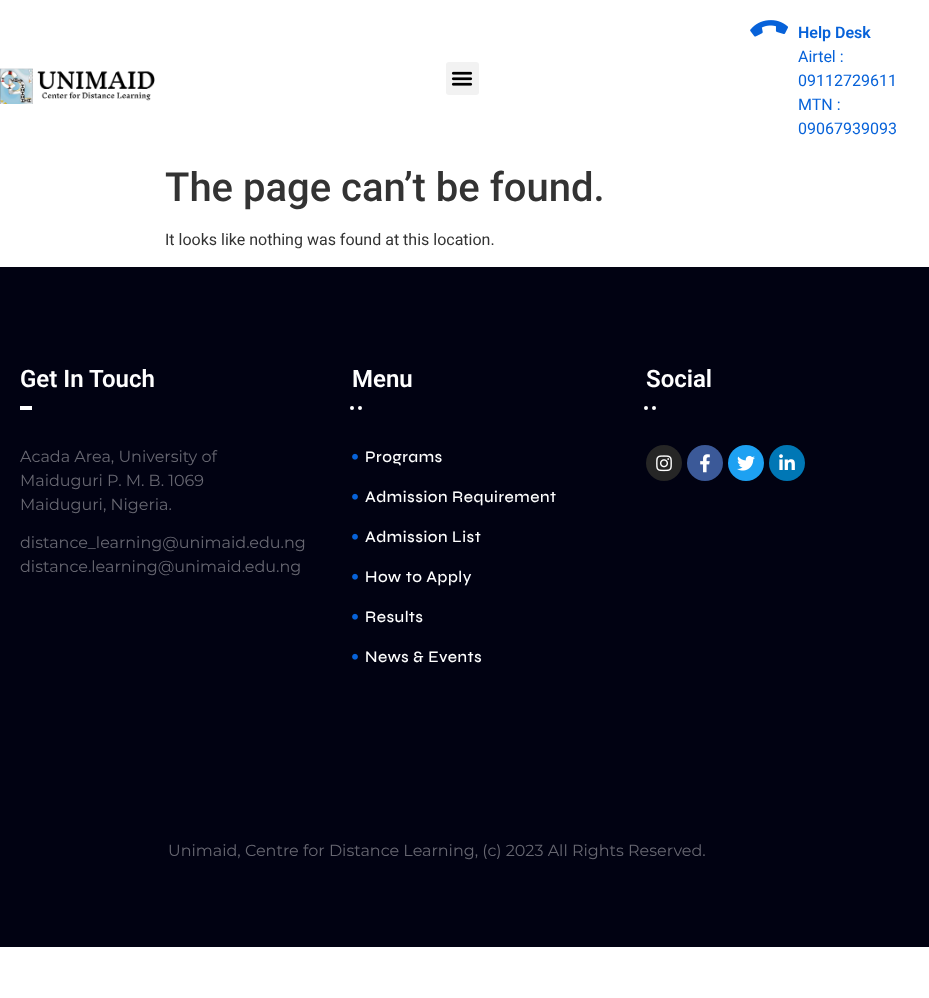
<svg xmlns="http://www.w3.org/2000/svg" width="929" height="998">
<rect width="100%" height="100%" fill="#fff"/>
<image x="0" y="68" width="155" height="36" href="media/1.png"/>
<rect x="446" y="62" width="33" height="33" rx="3" fill="#f2f2f2"/>
<image x="451" y="71" width="22" height="15" href="media/2.png"/>
<image x="750" y="20" width="38" height="17" href="media/3.png"/>
<text x="798" y="38" style="font-family:Roboto;font-size:16px;font-weight:600;fill:#0762d9">Help Desk</text>
<text x="798" y="62" style="font-family:Roboto;font-size:16px;fill:#0762d9">Airtel :</text>
<text x="798" y="86" style="font-family:Roboto;font-size:16px;fill:#0762d9">09112729611</text>
<text x="798" y="110" style="font-family:Roboto;font-size:16px;fill:#0762d9">MTN :</text>
<text x="798" y="134" style="font-family:Roboto;font-size:16px;fill:#0762d9">09067939093</text>
<text x="165" y="201" style="font-family:Roboto;font-size:40px;font-weight:500;fill:#333">The page can’t be found.</text>
<text x="165" y="245" style="font-family:Roboto;font-size:16px;fill:#333">It looks like nothing was found at this location.</text>
<rect y="267" width="929" height="680" fill="#010212"/>
<text x="20" y="387" style="font-family:Roboto;font-size:24px;font-weight:600;fill:#fff">Get In Touch</text>
<rect x="20" y="406" width="12" height="4" fill="#fff"/>
<text x="20" y="462" style="font-family:Montserrat;font-size:16px;fill:#676771">Acada Area, University of</text>
<text x="20" y="486" style="font-family:Montserrat;font-size:16px;fill:#676771">Maiduguri P. M. B. 1069</text>
<text x="20" y="510" style="font-family:Montserrat;font-size:16px;fill:#676771">Maiduguri, Nigeria.</text>
<text x="20" y="548" style="font-family:Montserrat;font-size:16px;fill:#676771">distance_learning@unimaid.edu.ng</text>
<text x="20" y="572" style="font-family:Montserrat;font-size:16px;fill:#676771">distance.learning@unimaid.edu.ng</text>
<text x="352" y="387" style="font-family:Roboto;font-size:24px;font-weight:600;fill:#fff">Menu</text>
<path d="M352 408h13" fill="none" stroke="#fff" stroke-width="4" stroke-linecap="round" stroke-dasharray="0 8"/>
<image x="352" y="453" width="6" height="7" href="media/4.png"/>
<text x="365" y="462" style="font-family:Syne;font-size:16px;font-weight:500;letter-spacing:0.5px;fill:#fff">Programs</text>
<image x="352" y="493" width="6" height="7" href="media/4.png"/>
<text x="365" y="502" style="font-family:Syne;font-size:16px;font-weight:500;letter-spacing:0.5px;fill:#fff">Admission Requirement</text>
<image x="352" y="533" width="6" height="7" href="media/4.png"/>
<text x="365" y="542" style="font-family:Syne;font-size:16px;font-weight:500;letter-spacing:0.5px;fill:#fff">Admission List</text>
<image x="352" y="573" width="6" height="7" href="media/4.png"/>
<text x="365" y="582" style="font-family:Syne;font-size:16px;font-weight:500;letter-spacing:0.5px;fill:#fff">How to Apply</text>
<image x="352" y="613" width="6" height="7" href="media/4.png"/>
<text x="365" y="622" style="font-family:Syne;font-size:16px;font-weight:500;letter-spacing:0.5px;fill:#fff">Results</text>
<image x="352" y="653" width="6" height="7" href="media/4.png"/>
<text x="365" y="662" style="font-family:Syne;font-size:16px;font-weight:500;letter-spacing:0.5px;fill:#fff">News &amp; Events</text>
<text x="646" y="387" style="font-family:Roboto;font-size:24px;font-weight:600;fill:#fff">Social</text>
<path d="M646 408h13" fill="none" stroke="#fff" stroke-width="4" stroke-linecap="round" stroke-dasharray="0 8"/>
<circle cx="664" cy="463" r="18" fill="#262626"/>
<image x="656" y="455" width="16" height="17" href="media/5.png"/>
<circle cx="705" cy="463" r="18" fill="#3b5998"/>
<image x="700" y="454" width="10" height="19" href="media/6.png"/>
<circle cx="746" cy="463" r="18" fill="#1da1f2"/>
<image x="737" y="455" width="18" height="16" href="media/7.png"/>
<circle cx="787" cy="463" r="18" fill="#0077b5"/>
<image x="779" y="454" width="16" height="16" href="media/8.png"/>
<text x="168" y="856" style="font-family:Montserrat;font-size:16px;fill:#676771">Unimaid, Centre for Distance Learning, (c) 2023 All Rights Reserved.</text>
</svg>
